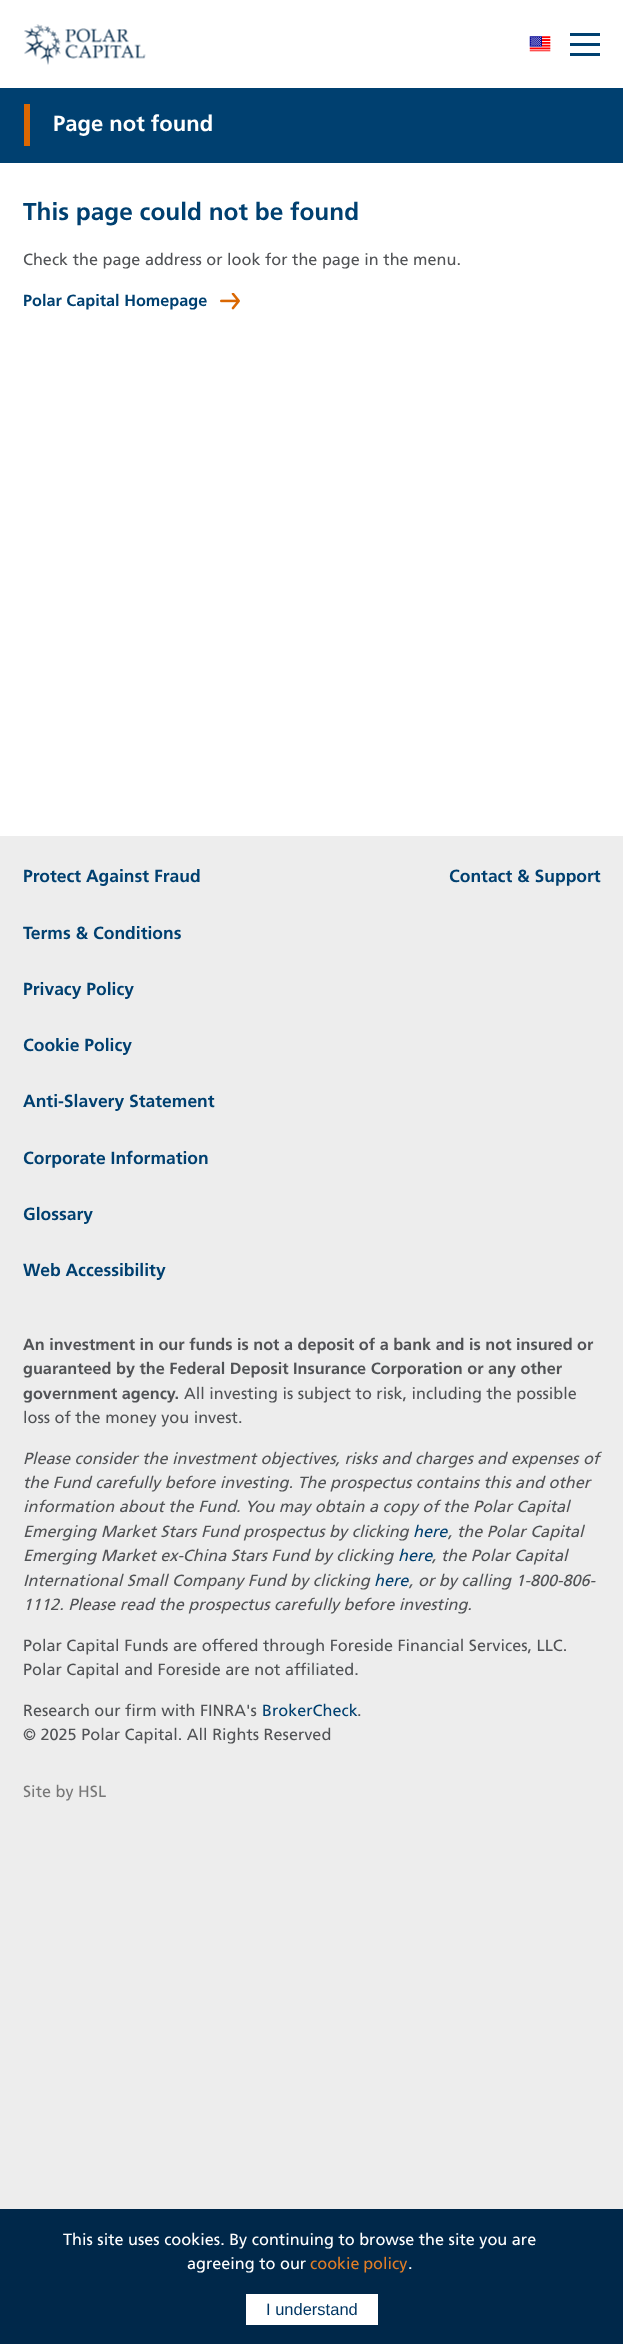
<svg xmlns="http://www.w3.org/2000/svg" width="623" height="2344">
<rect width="100%" height="100%" fill="#fff"/>
<image x="24" y="24" width="122" height="41" href="media/1.png"/>
<image x="529" y="36" width="22" height="16" href="media/2.png"/>
<rect x="570" y="33" width="30" height="3" fill="#004070"/>
<rect x="570" y="43" width="30" height="3" fill="#004070"/>
<rect x="570" y="53" width="30" height="3" fill="#004070"/>
<rect y="88" width="623" height="75" fill="#004070"/>
<rect x="24" y="104" width="6" height="42" fill="#da6702"/>
<text x="53" y="131" style="font-family:Frutiger;font-size:22px;fill:#fff">Page not found</text>
<text x="23" y="220" style="font-family:Frutiger;font-size:24.4px;fill:#004070">This page could not be found</text>
<text x="23" y="265" style="font-family:'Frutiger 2';font-size:16.25px;fill:#515356">Check the page address or look for the page in the menu.</text>
<text x="23" y="306" style="font-family:Frutiger;font-size:16.25px;fill:#004070">Polar Capital Homepage</text>
<image x="220" y="293" width="20" height="17" href="media/3.png"/>
<rect y="836" width="623" height="1373" fill="#ededed"/>
<text x="23" y="882" style="font-family:Frutiger;font-size:17.5px;fill:#004070">Protect Against Fraud</text>
<text x="23" y="939" style="font-family:Frutiger;font-size:17.5px;fill:#004070">Terms &amp; Conditions</text>
<text x="23" y="995" style="font-family:Frutiger;font-size:17.5px;fill:#004070">Privacy Policy</text>
<text x="23" y="1051" style="font-family:Frutiger;font-size:17.5px;fill:#004070">Cookie Policy</text>
<text x="23" y="1107" style="font-family:Frutiger;font-size:17.5px;fill:#004070">Anti-Slavery Statement</text>
<text x="23" y="1164" style="font-family:Frutiger;font-size:17.5px;fill:#004070">Corporate Information</text>
<text x="23" y="1220" style="font-family:Frutiger;font-size:17.5px;fill:#004070">Glossary</text>
<text x="23" y="1276" style="font-family:Frutiger;font-size:17.5px;fill:#004070">Web Accessibility</text>
<text x="449" y="882" style="font-family:Frutiger;font-size:17.5px;fill:#004070">Contact &amp; Support</text>
<text x="23" y="1350" style="font-family:Frutiger;font-size:16.25px;fill:#515356">An investment in our funds is not a deposit of a bank and is not insured or</text>
<text x="23" y="1374" style="font-family:Frutiger;font-size:16.25px;fill:#515356">guaranteed by the Federal Deposit Insurance Corporation or any other</text>
<text x="23" y="1399" style="font-family:Frutiger;font-size:16.25px;fill:#515356">government agency.</text>
<text x="184" y="1399" style="font-family:'Frutiger 2';font-size:16.25px;fill:#515356">All investing is subject to risk, including the possible</text>
<text x="23" y="1423" style="font-family:'Frutiger 2';font-size:16.25px;fill:#515356">loss of the money you invest.</text>
<text x="23" y="1464" style="font-family:Frutiger;font-size:16.25px;font-style:italic;fill:#515356">Please consider the investment objectives, risks and charges and expenses of</text>
<text x="23" y="1488" style="font-family:Frutiger;font-size:16.25px;font-style:italic;fill:#515356">the Fund carefully before investing. The prospectus contains this and other</text>
<text x="23" y="1512" style="font-family:Frutiger;font-size:16.25px;font-style:italic;fill:#515356">information about the Fund. You may obtain a copy of the Polar Capital</text>
<text x="23" y="1537" style="font-family:Frutiger;font-size:16.25px;font-style:italic;fill:#515356">Emerging Market Stars Fund prospectus by clicking</text>
<text x="413" y="1537" style="font-family:Frutiger;font-size:16.25px;font-style:italic;fill:#004070">here</text>
<text x="448" y="1537" style="font-family:Frutiger;font-size:16.25px;font-style:italic;fill:#515356">, the Polar Capital</text>
<text x="23" y="1561" style="font-family:Frutiger;font-size:16.25px;font-style:italic;fill:#515356">Emerging Market ex-China Stars Fund by clicking</text>
<text x="398" y="1561" style="font-family:Frutiger;font-size:16.25px;font-style:italic;fill:#004070">here</text>
<text x="432" y="1561" style="font-family:Frutiger;font-size:16.25px;font-style:italic;fill:#515356">, the Polar Capital</text>
<text x="23" y="1586" style="font-family:Frutiger;font-size:16.25px;font-style:italic;fill:#515356">International Small Company Fund by clicking</text>
<text x="374" y="1586" style="font-family:Frutiger;font-size:16.25px;font-style:italic;fill:#004070">here</text>
<text x="409" y="1586" style="font-family:Frutiger;font-size:16.25px;font-style:italic;fill:#515356">, or by calling 1-800-806-</text>
<text x="23" y="1610" style="font-family:Frutiger;font-size:16.25px;font-style:italic;fill:#515356">1112. Please read the prospectus carefully before investing.</text>
<text x="23" y="1651" style="font-family:'Frutiger 2';font-size:16.25px;fill:#515356">Polar Capital Funds are offered through Foreside Financial Services, LLC.</text>
<text x="23" y="1675" style="font-family:'Frutiger 2';font-size:16.25px;fill:#515356">Polar Capital and Foreside are not affiliated.</text>
<text x="23" y="1716" style="font-family:'Frutiger 2';font-size:16.25px;fill:#515356">Research our firm with FINRA's</text>
<text x="262" y="1716" style="font-family:'Frutiger 2';font-size:16.25px;fill:#004070">BrokerCheck</text>
<text x="357" y="1716" style="font-family:'Frutiger 2';font-size:16.25px;fill:#515356">.</text>
<text x="23" y="1740" style="font-family:'Frutiger 2';font-size:16.25px;fill:#515356">© 2025 Polar Capital. All Rights Reserved</text>
<text x="23" y="1797" style="font-family:'Frutiger 2';font-size:16.25px;fill:#777">Site by HSL</text>
<rect y="2209" width="623" height="135" fill="#00284a"/>
<text x="63" y="2245" style="font-family:'Frutiger 2';font-size:16.25px;fill:#fff">This site uses cookies. By continuing to browse the site you are</text>
<text x="187" y="2269" style="font-family:'Frutiger 2';font-size:16.25px;fill:#fff">agreeing to our</text>
<text x="310" y="2269" word-spacing="-1" style="font-family:'Frutiger 2';font-size:16.25px;fill:#e07e27">cookie policy</text>
<text x="408" y="2269" style="font-family:'Frutiger 2';font-size:16.25px;fill:#fff">.</text>
<rect x="246" y="2294" width="132" height="31" fill="#fff"/>
<text x="266" y="2315" style="font-family:Liberation Sans;font-size:16.5px;fill:#003663">I understand</text>
</svg>
